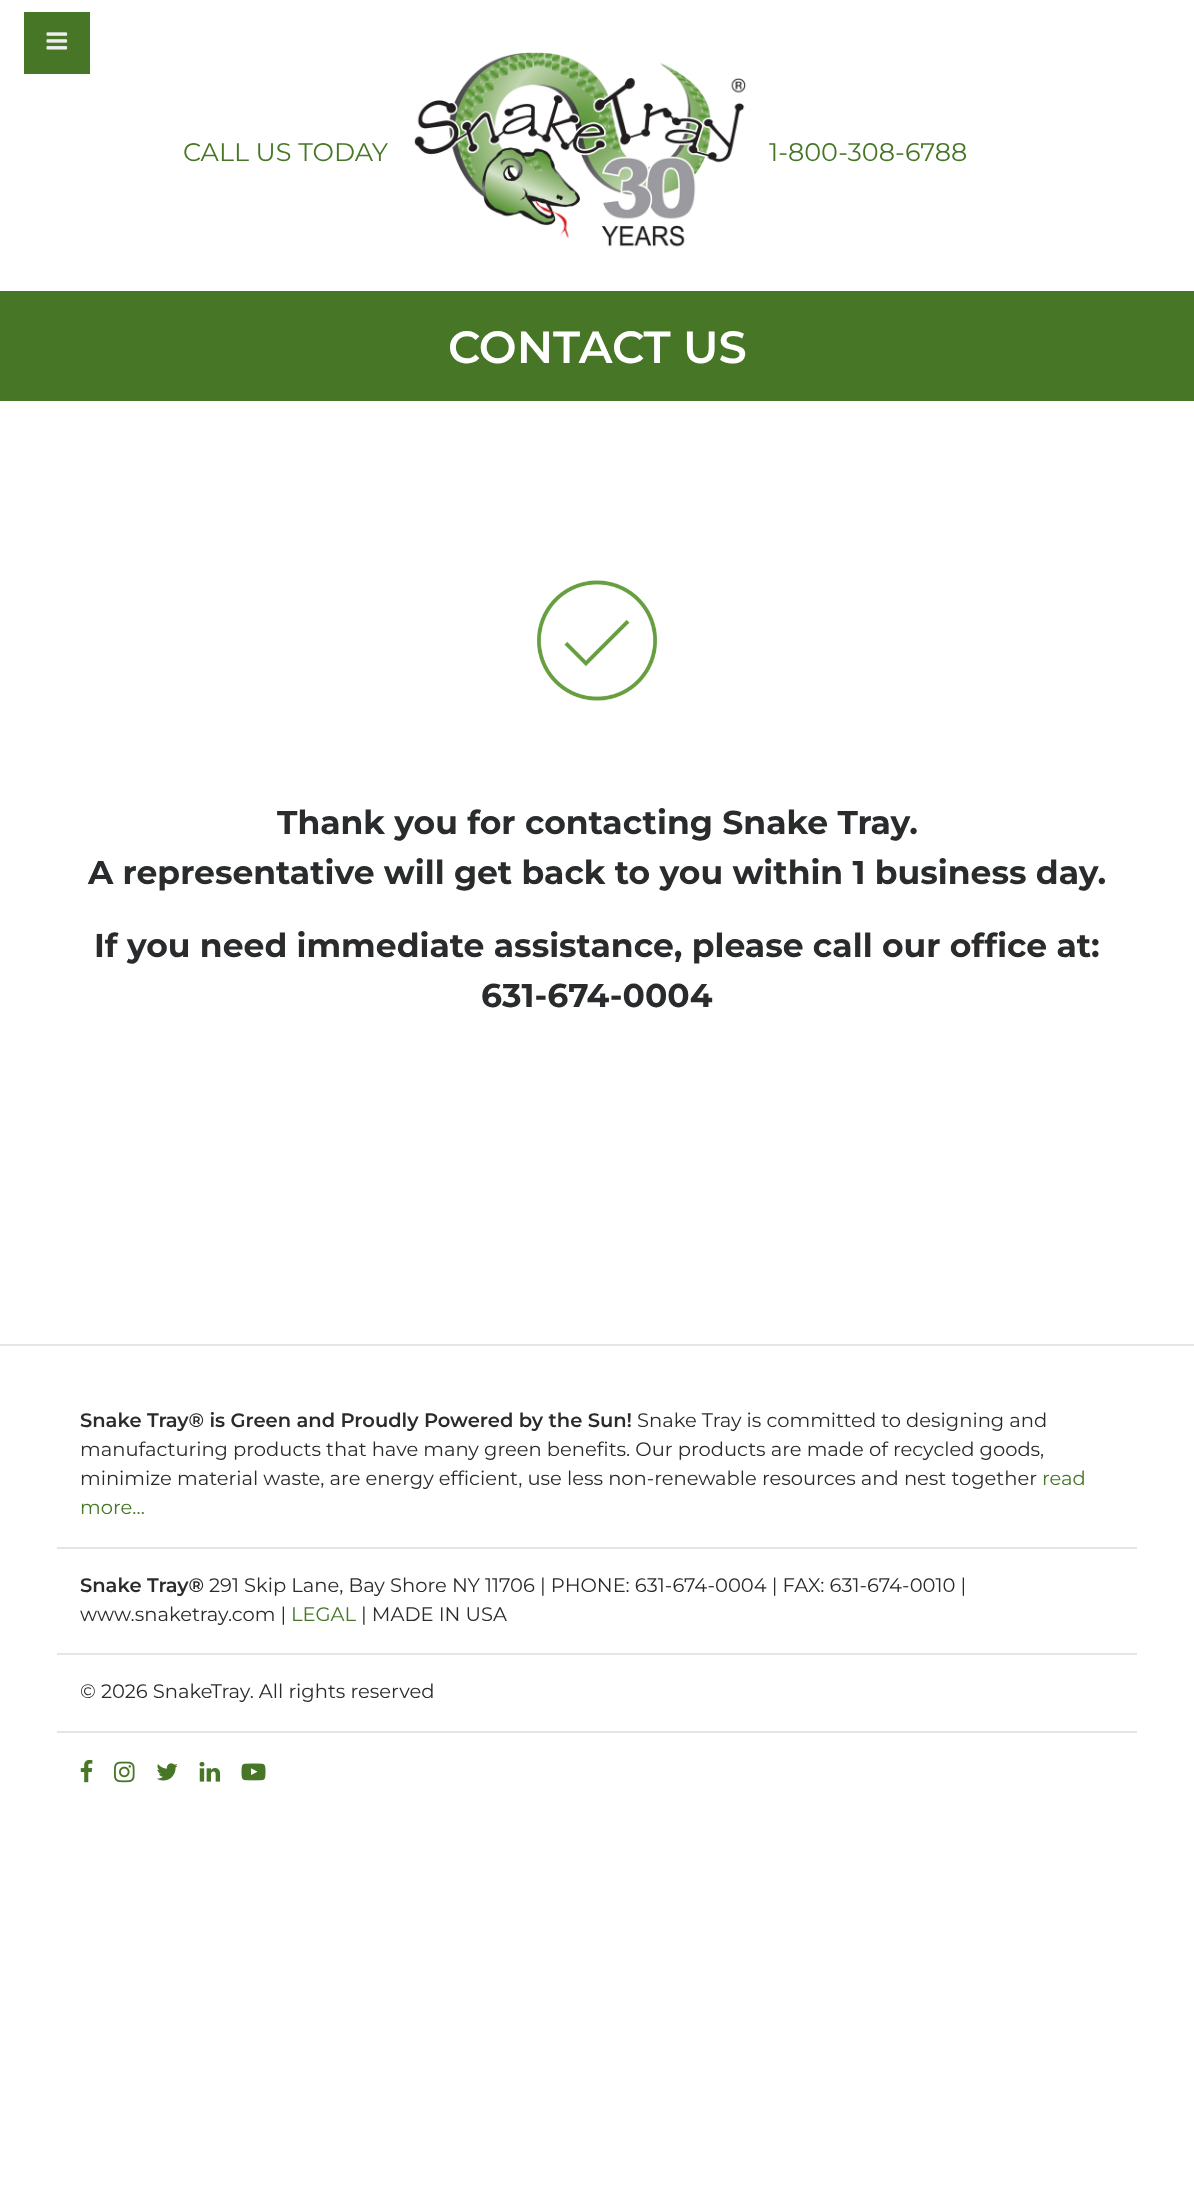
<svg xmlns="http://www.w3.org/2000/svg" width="1194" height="2188">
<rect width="100%" height="100%" fill="#fff"/>
<rect x="24" y="12" width="66" height="62" fill="#477627"/>
<image x="46" y="32" width="22" height="18" href="media/1.png"/>
<text x="183" y="161" style="font-family:Montserrat;font-size:25.5px;font-weight:100;fill:#477627">CALL US TODAY</text>
<image x="414" y="52" width="333" height="195" href="media/2.png"/>
<text x="769" y="161" style="font-family:Montserrat;font-size:25.5px;font-weight:100;fill:#477627">1-800-308-6788</text>
<rect y="291" width="1194" height="110" fill="#477627"/>
<text x="448" y="363" style="font-family:Montserrat;font-size:45px;font-weight:600;fill:#fff">CONTACT US</text>
<image x="537" y="580" width="120" height="121" href="media/3.png"/>
<text x="277" y="834" style="font-family:Montserrat;font-size:33px;font-weight:bold;fill:#292b2c">Thank you for contacting Snake Tray.</text>
<text x="88" y="884" style="font-family:Montserrat;font-size:33px;font-weight:bold;fill:#292b2c">A representative will get back to you within 1 business day.</text>
<text x="94" y="957" style="font-family:Montserrat;font-size:33px;font-weight:bold;fill:#292b2c">If you need immediate assistance, please call our office at:</text>
<text x="481" y="1007" style="font-family:Montserrat;font-size:33px;font-weight:bold;fill:#292b2c">631-674-0004</text>
<rect y="1344" width="1194" height="2" fill="#e5e5e5"/>
<text x="80" y="1427" style="font-family:Montserrat;font-size:19.5px;font-weight:600;fill:#292b2c">Snake Tray® is Green and Proudly Powered by the Sun!</text>
<text x="637" y="1427" style="font-family:Montserrat;font-size:19.5px;font-weight:100;fill:#292b2c">Snake Tray is committed to designing and</text>
<text x="80" y="1456" style="font-family:Montserrat;font-size:19.5px;font-weight:100;fill:#292b2c">manufacturing products that have many green benefits. Our products are made of recycled goods,</text>
<text x="80" y="1485" style="font-family:Montserrat;font-size:19.5px;font-weight:100;fill:#292b2c">minimize material waste, are energy efficient, use less non-renewable resources and nest together</text>
<text x="1042" y="1485" style="font-family:Montserrat;font-size:19.5px;font-weight:100;fill:#477627">read</text>
<text x="80" y="1514" style="font-family:Montserrat;font-size:19.5px;font-weight:100;fill:#477627">more…</text>
<rect x="57" y="1547" width="1080" height="2" fill="#e5e5e5"/>
<text x="80" y="1592" style="font-family:Montserrat;font-size:19.5px;font-weight:600;fill:#292b2c">Snake Tray®</text>
<text x="209" y="1592" style="font-family:Montserrat;font-size:19.5px;font-weight:100;fill:#292b2c">291 Skip Lane, Bay Shore NY 11706 | PHONE: 631-674-0004 | FAX: 631-674-0010 |</text>
<text x="80" y="1621" style="font-family:Montserrat;font-size:19.5px;font-weight:100;fill:#292b2c">www.snaketray.com |</text>
<text x="291" y="1621" style="font-family:Montserrat;font-size:19.5px;font-weight:100;fill:#477627">LEGAL</text>
<text x="361" y="1621" style="font-family:Montserrat;font-size:19.5px;font-weight:100;fill:#292b2c">| MADE IN USA</text>
<rect x="57" y="1653" width="1080" height="2" fill="#e5e5e5"/>
<text x="80" y="1698" style="font-family:Montserrat;font-size:19.5px;font-weight:100;fill:#292b2c">© 2026 SnakeTray. All rights reserved</text>
<rect x="57" y="1731" width="1080" height="2" fill="#e5e5e5"/>
<image x="80" y="1759" width="13" height="24" href="media/4.png"/>
<image x="114" y="1761" width="21" height="22" href="media/5.png"/>
<image x="156" y="1763" width="22" height="18" href="media/6.png"/>
<image x="199" y="1761" width="22" height="21" href="media/7.png"/>
<image x="241" y="1763" width="25" height="18" href="media/8.png"/>
</svg>
